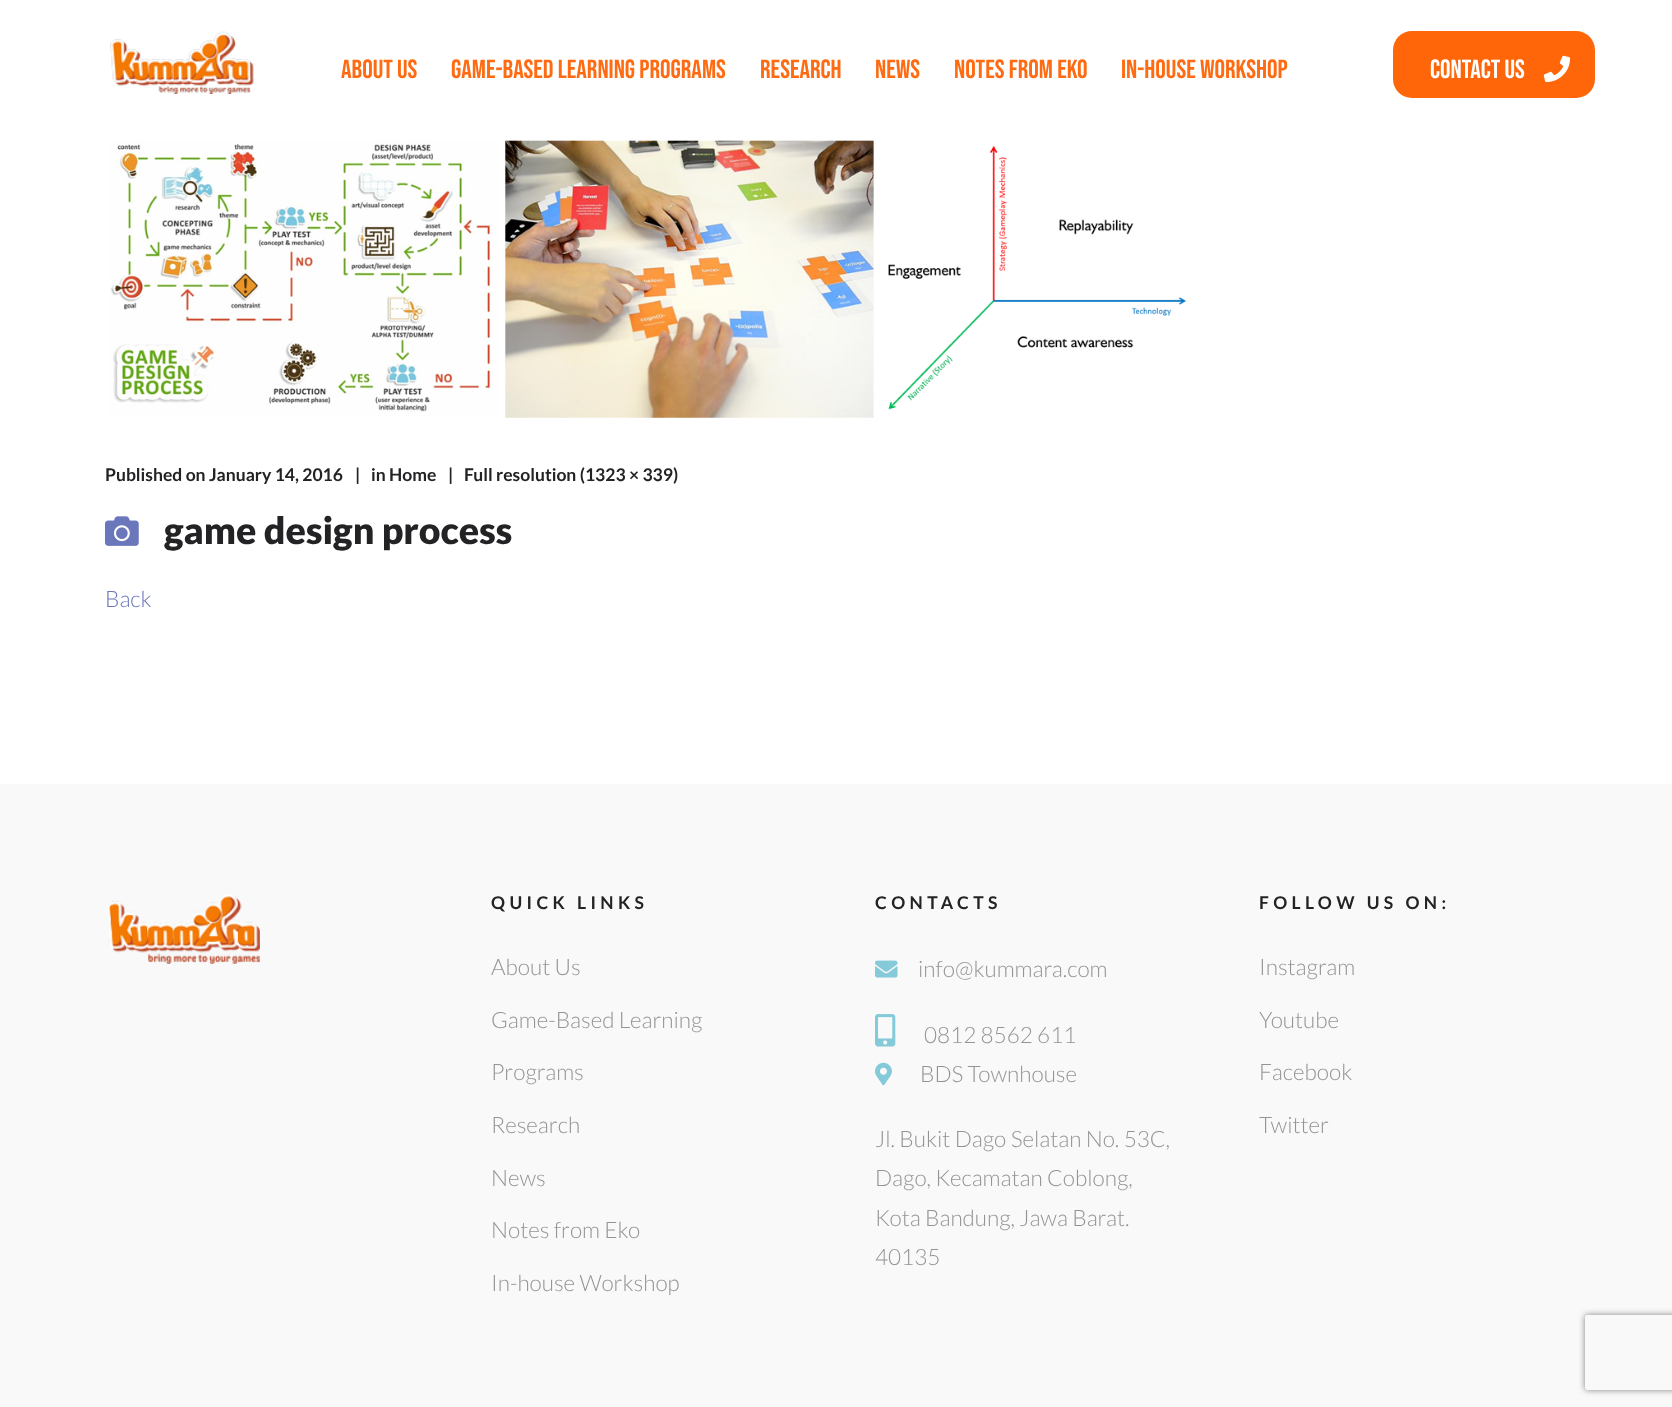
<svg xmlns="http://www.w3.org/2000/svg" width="1672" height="1407">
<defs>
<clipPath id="clip1"><path d="M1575 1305h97v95h-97zm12.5 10h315c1.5 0 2.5 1 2.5 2.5v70c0 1.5-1 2.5-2.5 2.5h-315c-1.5 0-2.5-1-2.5-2.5v-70c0-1.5 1-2.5 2.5-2.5z" clip-rule="evenodd"/></clipPath>
</defs>
<rect width="100%" height="100%" fill="#fff"/>
<image x="110" y="31" width="144" height="63" href="media/1.png"/>
<text x="341" y="78" style="font-family:Bebas Neue;font-size:26.25px;fill:#ff6b12">About Us</text>
<text x="451" y="78" style="font-family:Bebas Neue;font-size:26.25px;fill:#ff6b12">Game-Based Learning Programs</text>
<text x="760" y="78" style="font-family:Bebas Neue;font-size:26.25px;fill:#ff6b12">Research</text>
<text x="875" y="78" style="font-family:Bebas Neue;font-size:26.25px;fill:#ff6b12">News</text>
<text x="954" y="78" style="font-family:Bebas Neue;font-size:26.25px;fill:#ff6b12">Notes from Eko</text>
<text x="1121" y="78" style="font-family:Bebas Neue;font-size:26.25px;fill:#ff6b12">In-house Workshop</text>
<rect x="1393" y="31" width="202" height="67" rx="19" fill="#ff6609"/>
<text x="1430" y="78" style="font-family:Bebas Neue;font-size:26.25px;fill:#fff">Contact us</text>
<image x="1543" y="55" width="28" height="27" href="media/2.png"/>
<image x="110" y="140" width="1076" height="278" href="media/3.png"/>
<text x="105" y="481" style="font-family:Lato;font-size:17.5px;font-weight:bold;fill:#232325">Published on January 14, 2016</text>
<text x="355" y="481" style="font-family:Lato;font-size:17.5px;font-weight:bold;fill:#232325">|</text>
<text x="371" y="481" style="font-family:Lato;font-size:17.5px;font-weight:bold;fill:#232325">in Home</text>
<text x="448" y="481" style="font-family:Lato;font-size:17.5px;font-weight:bold;fill:#232325">|</text>
<text x="464" y="481" style="font-family:Lato;font-size:17.5px;font-weight:bold;fill:#232325">Full resolution (1323 × 339)</text>
<image x="105" y="516" width="34" height="30" href="media/4.png"/>
<text x="164" y="544" style="font-family:Lato;font-size:37.5px;font-weight:900;fill:#232325">game design process</text>
<text x="105" y="607" style="font-family:Lato;font-size:22.5px;font-weight:300;fill:#6a77bb">Back</text>
<rect y="784" width="1672" height="623" fill="#f9f9f9"/>
<image x="108" y="894" width="152" height="70" href="media/5.png"/>
<text x="491" y="909" style="font-family:Lato;font-size:17.5px;font-weight:bold;letter-spacing:4.4px;fill:#232325">QUICK LINKS</text>
<text x="491" y="975" style="font-family:Lato;font-size:22.5px;font-weight:300;fill:#949494">About Us</text>
<text x="491" y="1028" style="font-family:Lato;font-size:22.5px;font-weight:300;fill:#949494">Game-Based Learning</text>
<text x="491" y="1080" style="font-family:Lato;font-size:22.5px;font-weight:300;fill:#949494">Programs</text>
<text x="491" y="1133" style="font-family:Lato;font-size:22.5px;font-weight:300;fill:#949494">Research</text>
<text x="491" y="1186" style="font-family:Lato;font-size:22.5px;font-weight:300;fill:#949494">News</text>
<text x="491" y="1238" style="font-family:Lato;font-size:22.5px;font-weight:300;fill:#949494">Notes from Eko</text>
<text x="491" y="1291" style="font-family:Lato;font-size:22.5px;font-weight:300;fill:#949494">In-house Workshop</text>
<text x="875" y="909" style="font-family:Lato;font-size:17.5px;font-weight:bold;letter-spacing:4.4px;fill:#232325">CONTACTS</text>
<image x="875" y="960" width="23" height="18" href="media/6.png"/>
<text x="918" y="977" style="font-family:Lato;font-size:22.5px;font-weight:300;fill:#949494">info@kummara.com</text>
<image x="875" y="1014" width="21" height="33" href="media/7.png"/>
<text x="924" y="1043" style="font-family:Lato;font-size:22.5px;font-weight:300;fill:#949494">0812 8562 611</text>
<image x="875" y="1062" width="17" height="24" href="media/8.png"/>
<text x="920" y="1082" style="font-family:Lato;font-size:22.5px;font-weight:300;fill:#949494">BDS Townhouse</text>
<text x="875" y="1147" style="font-family:Lato;font-size:22.5px;font-weight:300;fill:#949494">Jl. Bukit Dago Selatan No. 53C,</text>
<text x="875" y="1186" style="font-family:Lato;font-size:22.5px;font-weight:300;fill:#949494">Dago, Kecamatan Coblong,</text>
<text x="875" y="1226" style="font-family:Lato;font-size:22.5px;font-weight:300;fill:#949494">Kota Bandung, Jawa Barat.</text>
<text x="875" y="1265" style="font-family:Lato;font-size:22.5px;font-weight:300;fill:#949494">40135</text>
<text x="1259" y="909" style="font-family:Lato;font-size:17.5px;font-weight:bold;letter-spacing:4.4px;fill:#232325">FOLLOW US ON:</text>
<text x="1259" y="975" style="font-family:Lato;font-size:22.5px;font-weight:300;fill:#949494">Instagram</text>
<text x="1259" y="1028" style="font-family:Lato;font-size:22.5px;font-weight:300;fill:#949494">Youtube</text>
<text x="1259" y="1080" style="font-family:Lato;font-size:22.5px;font-weight:300;fill:#949494">Facebook</text>
<text x="1259" y="1133" style="font-family:Lato;font-size:22.5px;font-weight:300;fill:#949494">Twitter</text>
<g clip-path="url(#clip1)">
<rect x="1585" y="1315" width="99" height="75" rx="2.5" fill="#808080" filter="blur(3px)"/>
</g>
</svg>
